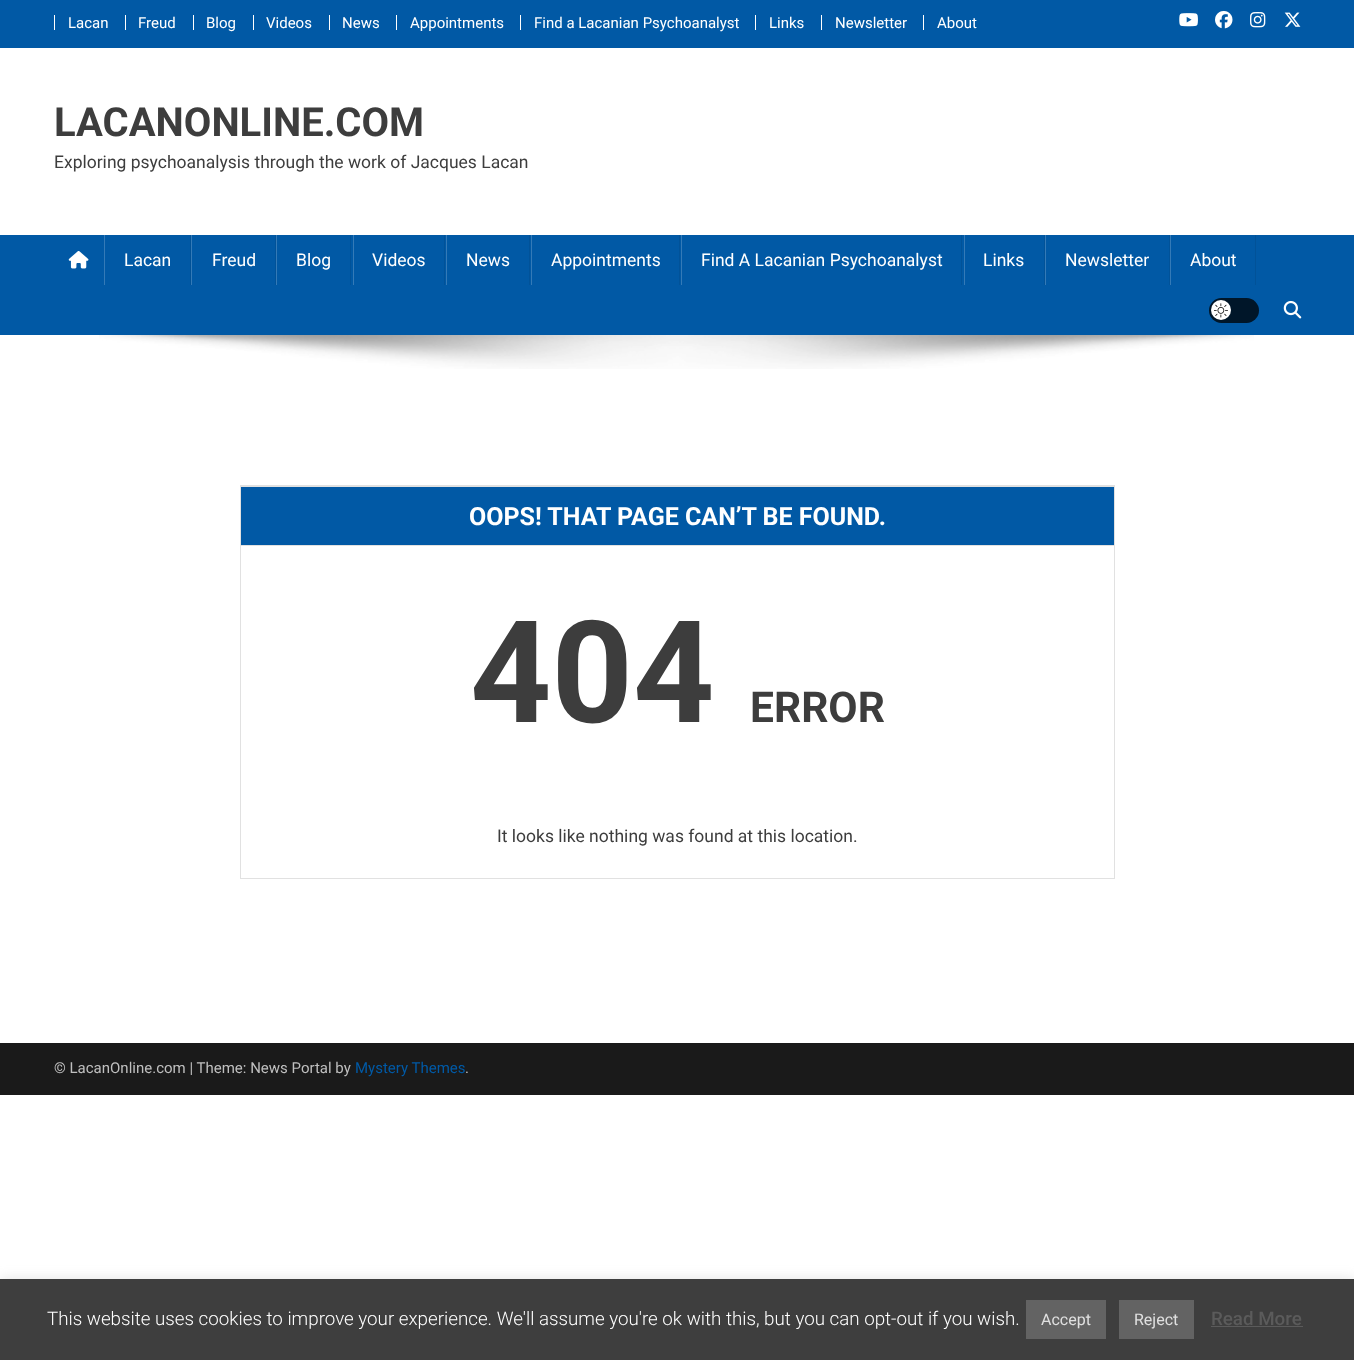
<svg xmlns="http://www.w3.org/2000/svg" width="1354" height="1360">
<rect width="100%" height="100%" fill="#fff"/>
<rect width="1354" height="48" fill="#0159a5"/>
<rect x="54" y="15" width="1" height="15" fill="#fff"/>
<text x="68" y="28" style="font-family:Roboto;font-size:15px;fill:#fff">Lacan</text>
<rect x="125" y="15" width="1" height="15" fill="#fff"/>
<text x="138" y="28" style="font-family:Roboto;font-size:15px;fill:#fff">Freud</text>
<rect x="193" y="15" width="1" height="15" fill="#fff"/>
<text x="206" y="28" style="font-family:Roboto;font-size:15px;fill:#fff">Blog</text>
<rect x="253" y="15" width="1" height="15" fill="#fff"/>
<text x="266" y="28" style="font-family:Roboto;font-size:15px;fill:#fff">Videos</text>
<rect x="329" y="15" width="1" height="15" fill="#fff"/>
<text x="342" y="28" style="font-family:Roboto;font-size:15px;fill:#fff">News</text>
<rect x="396" y="15" width="1" height="15" fill="#fff"/>
<text x="410" y="28" style="font-family:Roboto;font-size:15px;fill:#fff">Appointments</text>
<rect x="520" y="15" width="1" height="15" fill="#fff"/>
<text x="534" y="28" style="font-family:Roboto;font-size:15px;fill:#fff">Find a Lacanian Psychoanalyst</text>
<rect x="755" y="15" width="1" height="15" fill="#fff"/>
<text x="769" y="28" style="font-family:Roboto;font-size:15px;fill:#fff">Links</text>
<rect x="821" y="15" width="1" height="15" fill="#fff"/>
<text x="835" y="28" style="font-family:Roboto;font-size:15px;fill:#fff">Newsletter</text>
<rect x="923" y="15" width="1" height="15" fill="#fff"/>
<text x="937" y="28" style="font-family:Roboto;font-size:15px;fill:#fff">About</text>
<image x="1179" y="13" width="19" height="14" href="media/1.png"/>
<image x="1215" y="10" width="18" height="19" href="media/2.png"/>
<image x="1250" y="12" width="16" height="16" href="media/3.png"/>
<image x="1284" y="12" width="17" height="15" href="media/4.png"/>
<text x="54" y="136" style="font-family:Roboto;font-size:40px;font-weight:bold;fill:#3d3d3d">LACANONLINE.COM</text>
<text x="54" y="168" style="font-family:Roboto;font-size:17.5px;fill:#3d3d3d">Exploring psychoanalysis through the work of Jacques Lacan</text>
<rect y="235" width="1354" height="100" fill="#0159a5"/>
<image x="68" y="251" width="21" height="18" href="media/5.png"/>
<rect x="190" y="235" width="1" height="50" fill="#015298"/>
<rect x="104" y="235" width="1" height="50" fill="#347ab7"/>
<text x="124" y="266" style="font-family:Roboto;font-size:17.5px;fill:#fff">Lacan</text>
<rect x="275" y="235" width="1" height="50" fill="#015298"/>
<rect x="191" y="235" width="1" height="50" fill="#347ab7"/>
<text x="212" y="266" style="font-family:Roboto;font-size:17.5px;fill:#fff">Freud</text>
<rect x="350" y="235" width="1" height="50" fill="#015298"/>
<rect x="276" y="235" width="1" height="50" fill="#347ab7"/>
<text x="296" y="266" style="font-family:Roboto;font-size:17.5px;fill:#fff">Blog</text>
<rect x="444" y="235" width="1" height="50" fill="#015298"/>
<rect x="353" y="235" width="1" height="50" fill="#347ab7"/>
<text x="372" y="266" style="font-family:Roboto;font-size:17.5px;fill:#fff">Videos</text>
<rect x="529" y="235" width="1" height="50" fill="#015298"/>
<rect x="446" y="235" width="1" height="50" fill="#347ab7"/>
<text x="466" y="266" style="font-family:Roboto;font-size:17.5px;fill:#fff">News</text>
<rect x="679" y="235" width="1" height="50" fill="#015298"/>
<rect x="531" y="235" width="1" height="50" fill="#347ab7"/>
<text x="551" y="266" style="font-family:Roboto;font-size:17.5px;fill:#fff">Appointments</text>
<rect x="961" y="235" width="1" height="50" fill="#015298"/>
<rect x="681" y="235" width="1" height="50" fill="#347ab7"/>
<text x="701" y="266" style="font-family:Roboto;font-size:17.5px;fill:#fff">Find A Lacanian Psychoanalyst</text>
<rect x="1044" y="235" width="1" height="50" fill="#015298"/>
<rect x="964" y="235" width="1" height="50" fill="#347ab7"/>
<text x="983" y="266" style="font-family:Roboto;font-size:17.5px;fill:#fff">Links</text>
<rect x="1169" y="235" width="1" height="50" fill="#015298"/>
<rect x="1045" y="235" width="1" height="50" fill="#347ab7"/>
<text x="1065" y="266" style="font-family:Roboto;font-size:17.5px;fill:#fff">Newsletter</text>
<rect x="1255" y="235" width="1" height="50" fill="#015298"/>
<rect x="1170" y="235" width="1" height="50" fill="#347ab7"/>
<text x="1190" y="266" style="font-family:Roboto;font-size:17.5px;fill:#fff">About</text>
<rect x="1209" y="298" width="50" height="25" rx="12.5" fill="#001629"/>
<circle cx="1221" cy="310" r="10" fill="#fff"/>
<image x="1214" y="303" width="14" height="15" href="media/6.png"/>
<image x="1283" y="300" width="19" height="19" href="media/7.png"/>
<image x="99" y="335" width="1155" height="34" href="media/8.png"/>
<rect x="240.5" y="485.5" width="874" height="393" fill="none" stroke="#e1e1e1"/>
<rect x="241" y="487" width="873" height="58" fill="#0159a5"/>
<rect x="241" y="486" width="873" height="1" fill="#e1e1e1"/>
<rect x="241" y="545" width="873" height="1" fill="#e1e1e1"/>
<text x="469" y="525" style="font-family:Roboto;font-size:25px;font-weight:bold;fill:#fff">OOPS! THAT PAGE CAN’T BE FOUND.</text>
<text x="470" y="722" style="font-family:Roboto;font-size:142px;font-weight:bold;fill:#3d3d3d">404</text>
<text x="750" y="722" style="font-family:Roboto;font-size:42.5px;font-weight:bold;fill:#3d3d3d">ERROR</text>
<text x="497" y="842" style="font-family:Roboto;font-size:17.5px;fill:#3d3d3d">It looks like nothing was found at this location.</text>
<rect y="1043" width="1354" height="52" fill="#1a1a1a"/>
<text x="54" y="1073" style="font-family:Roboto;font-size:15px;fill:#bfbfbf">© LacanOnline.com | Theme: News Portal by</text>
<text x="355" y="1073" style="font-family:Roboto;font-size:15px;fill:#0159a5">Mystery Themes</text>
<text x="465" y="1073" style="font-family:Roboto;font-size:15px;fill:#bfbfbf">.</text>
<rect y="1278" width="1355" height="81" fill="#acabab4d" filter="blur(6px)"/>
<rect y="1279" width="1354" height="81" fill="#3e3e3e"/>
<text x="47" y="1325" style="font-family:Roboto;font-size:18.75px;font-weight:300;fill:#fff">This website uses cookies to improve your experience. We'll assume you're ok with this, but you can opt-out if you wish.</text>
<rect x="1026" y="1300" width="80" height="39" fill="#636363"/>
<text x="1041" y="1325" style="font-family:Roboto;font-size:16px;fill:#e0e0e0">Accept</text>
<rect x="1119" y="1300" width="75" height="39" fill="#636363"/>
<text x="1134" y="1325" style="font-family:Roboto;font-size:16px;fill:#e0e0e0">Reject</text>
<text x="1211" y="1325" style="font-family:Roboto;font-size:18.75px;font-weight:500;fill:#5b5b5b">Read More</text>
<rect x="1211" y="1326" width="92" height="1" fill="#5b5b5b"/>
</svg>
